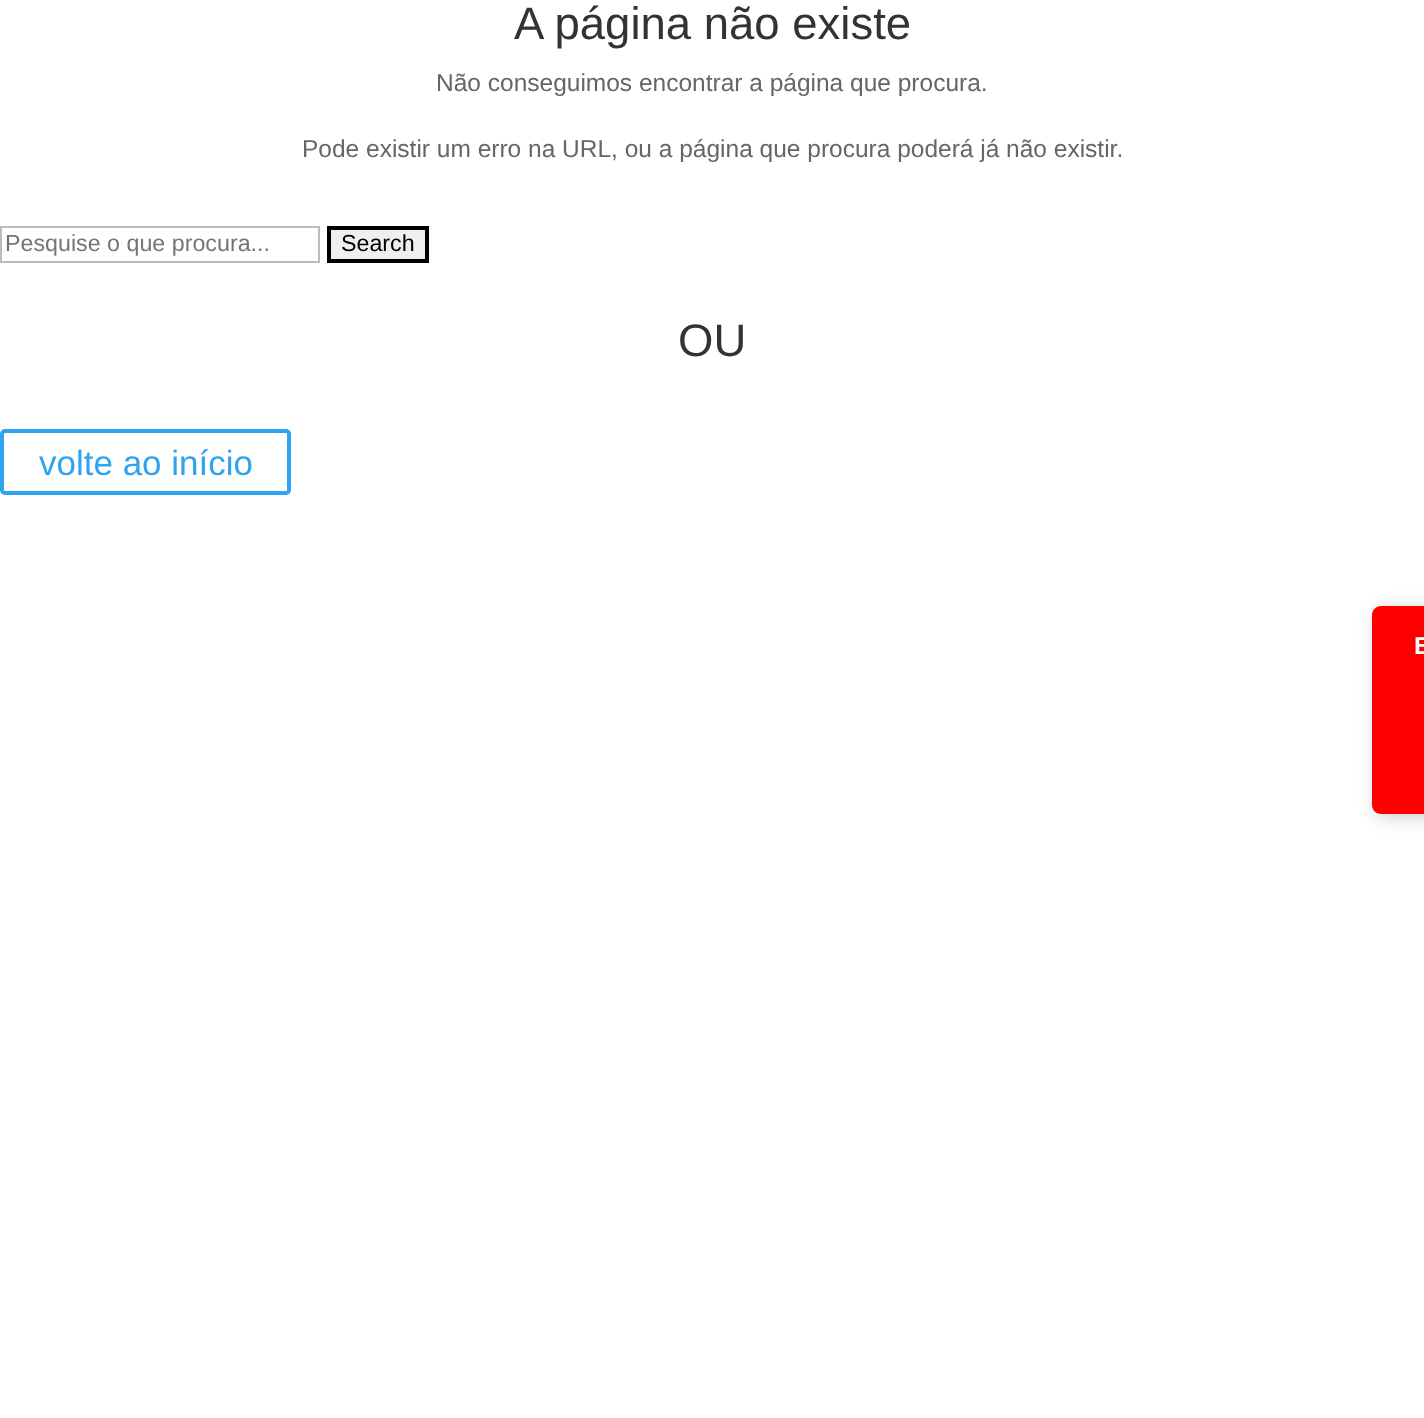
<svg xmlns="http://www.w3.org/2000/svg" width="1424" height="1418">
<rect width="100%" height="100%" fill="#fff"/>
<text x="514" y="39" style="font-family:Liberation Sans;font-size:45.5px;fill:#333">A página não existe</text>
<text x="436" y="91" style="font-family:Liberation Sans;font-size:24.5px;fill:#666">Não conseguimos encontrar a página que procura.</text>
<text x="302" y="157" style="font-family:Liberation Sans;font-size:24.5px;fill:#666">Pode existir um erro na URL, ou a página que procura poderá já não existir.</text>
<rect x="1" y="227" width="318" height="35" fill="none" stroke="#bbb" stroke-width="2"/>
<text x="5" y="251" style="font-family:Liberation Sans;font-size:23.25px;fill:#757575">Pesquise o que procura...</text>
<rect x="329" y="228" width="98" height="33" fill="#efefef" stroke="#000" stroke-width="4"/>
<text x="341" y="251" style="font-family:Liberation Sans;font-size:23.25px;fill:#000">Search</text>
<text x="678" y="356" style="font-family:Liberation Sans;font-size:45.5px;fill:#333">OU</text>
<rect x="2" y="431" width="287" height="62" rx="3" fill="none" stroke="#2ea3f2" stroke-width="4"/>
<text x="39" y="475" style="font-family:Liberation Sans;font-size:35px;fill:#2ea3f2">volte ao início</text>
<rect x="1376" y="609" width="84" height="208" rx="9" fill="#00000033" filter="blur(9px)"/>
<path d="M1381 606h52v208h-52c-5 0-9-4-9-9v-190c0-5 4-9 9-9z" fill="#f00"/>
<text x="1414" y="654" style="font-family:Liberation Sans;font-size:24.5px;font-weight:bold;fill:#fff">E</text>
</svg>
